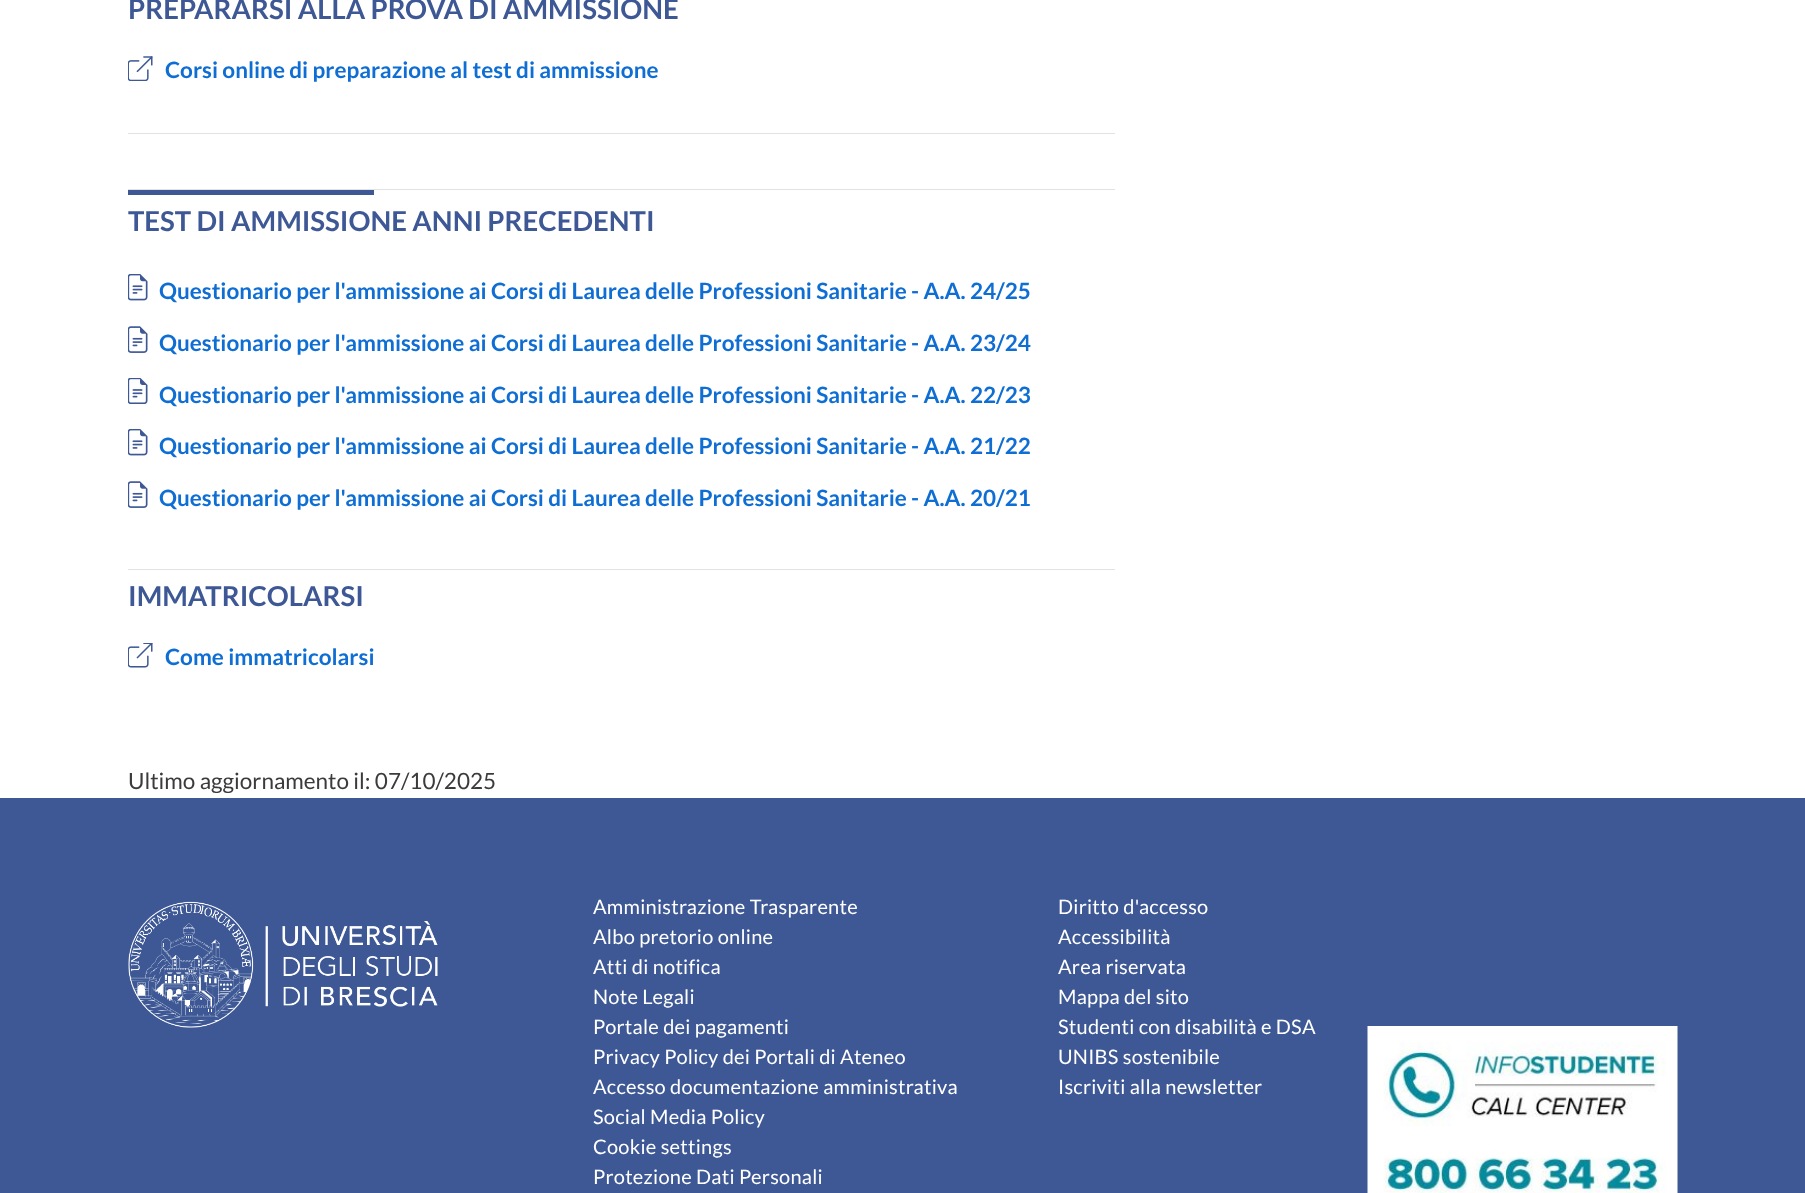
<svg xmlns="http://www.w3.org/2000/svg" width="1805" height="1193">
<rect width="100%" height="100%" fill="#fff"/>
<text x="128" y="19" style="font-family:Lato;font-size:27.5px;font-weight:bold;fill:#3d5895">PREPARARSI ALLA PROVA DI AMMISSIONE</text>
<image x="128" y="56" width="25" height="25" href="media/1.png"/>
<text x="165" y="78" style="font-family:Lato;font-size:22.5px;font-weight:bold;fill:#0f6ed4">Corsi online di preparazione al test di ammissione</text>
<rect x="128" y="133" width="987" height="1" fill="#e2e2e2"/>
<rect x="128" y="189" width="987" height="1" fill="#e2e2e2"/>
<rect x="128" y="190" width="246" height="5" fill="#3d5895"/>
<text x="128" y="231" style="font-family:Lato;font-size:27.5px;font-weight:bold;fill:#3d5895">TEST DI AMMISSIONE ANNI PRECEDENTI</text>
<image x="128" y="274" width="20" height="27" href="media/2.png"/>
<text x="159" y="299" style="font-family:Lato;font-size:22.5px;font-weight:bold;fill:#0f6ed4">Questionario per l'ammissione ai Corsi di Laurea delle Professioni Sanitarie - A.A. 24/25</text>
<image x="128" y="326" width="20" height="27" href="media/3.png"/>
<text x="159" y="351" style="font-family:Lato;font-size:22.5px;font-weight:bold;fill:#0f6ed4">Questionario per l'ammissione ai Corsi di Laurea delle Professioni Sanitarie - A.A. 23/24</text>
<image x="128" y="378" width="20" height="26" href="media/4.png"/>
<text x="159" y="403" style="font-family:Lato;font-size:22.5px;font-weight:bold;fill:#0f6ed4">Questionario per l'ammissione ai Corsi di Laurea delle Professioni Sanitarie - A.A. 22/23</text>
<image x="128" y="429" width="20" height="27" href="media/2.png"/>
<text x="159" y="454" style="font-family:Lato;font-size:22.5px;font-weight:bold;fill:#0f6ed4">Questionario per l'ammissione ai Corsi di Laurea delle Professioni Sanitarie - A.A. 21/22</text>
<image x="128" y="481" width="20" height="27" href="media/3.png"/>
<text x="159" y="506" style="font-family:Lato;font-size:22.5px;font-weight:bold;fill:#0f6ed4">Questionario per l'ammissione ai Corsi di Laurea delle Professioni Sanitarie - A.A. 20/21</text>
<rect x="128" y="569" width="987" height="1" fill="#e2e2e2"/>
<text x="128" y="606" style="font-family:Lato;font-size:27.5px;font-weight:bold;fill:#3d5895">IMMATRICOLARSI</text>
<image x="128" y="643" width="25" height="25" href="media/5.png"/>
<text x="165" y="665" style="font-family:Lato;font-size:22.5px;font-weight:bold;fill:#0f6ed4">Come immatricolarsi</text>
<text x="128" y="789" style="font-family:Lato;font-size:22.5px;fill:#3b3b3b">Ultimo aggiornamento il: 07/10/2025</text>
<rect y="798" width="1805" height="395" fill="#3d5895"/>
<image x="128" y="901" width="310" height="127" href="media/6.png"/>
<text x="593" y="914" style="font-family:Lato;font-size:20px;letter-spacing:0.25px;fill:#fff">Amministrazione Trasparente</text>
<text x="593" y="944" style="font-family:Lato;font-size:20px;letter-spacing:0.25px;fill:#fff">Albo pretorio online</text>
<text x="593" y="974" style="font-family:Lato;font-size:20px;letter-spacing:0.25px;fill:#fff">Atti di notifica</text>
<text x="593" y="1004" style="font-family:Lato;font-size:20px;letter-spacing:0.25px;fill:#fff">Note Legali</text>
<text x="593" y="1034" style="font-family:Lato;font-size:20px;letter-spacing:0.25px;fill:#fff">Portale dei pagamenti</text>
<text x="593" y="1064" style="font-family:Lato;font-size:20px;letter-spacing:0.25px;fill:#fff">Privacy Policy dei Portali di Ateneo</text>
<text x="593" y="1094" style="font-family:Lato;font-size:20px;letter-spacing:0.25px;fill:#fff">Accesso documentazione amministrativa</text>
<text x="593" y="1124" style="font-family:Lato;font-size:20px;letter-spacing:0.25px;fill:#fff">Social Media Policy</text>
<text x="593" y="1154" style="font-family:Lato;font-size:20px;letter-spacing:0.25px;fill:#fff">Cookie settings</text>
<text x="593" y="1184" style="font-family:Lato;font-size:20px;letter-spacing:0.25px;fill:#fff">Protezione Dati Personali</text>
<text x="1058" y="914" style="font-family:Lato;font-size:20px;letter-spacing:0.25px;fill:#fff">Diritto d'accesso</text>
<text x="1058" y="944" style="font-family:Lato;font-size:20px;letter-spacing:0.25px;fill:#fff">Accessibilità</text>
<text x="1058" y="974" style="font-family:Lato;font-size:20px;letter-spacing:0.25px;fill:#fff">Area riservata</text>
<text x="1058" y="1004" style="font-family:Lato;font-size:20px;letter-spacing:0.25px;fill:#fff">Mappa del sito</text>
<text x="1058" y="1034" style="font-family:Lato;font-size:20px;letter-spacing:0.25px;fill:#fff">Studenti con disabilità e DSA</text>
<text x="1058" y="1064" style="font-family:Lato;font-size:20px;letter-spacing:0.25px;fill:#fff">UNIBS sostenibile</text>
<text x="1058" y="1094" style="font-family:Lato;font-size:20px;letter-spacing:0.25px;fill:#fff">Iscriviti alla newsletter</text>
<image x="1367" y="1026" width="311" height="167" href="media/7.png"/>
</svg>
